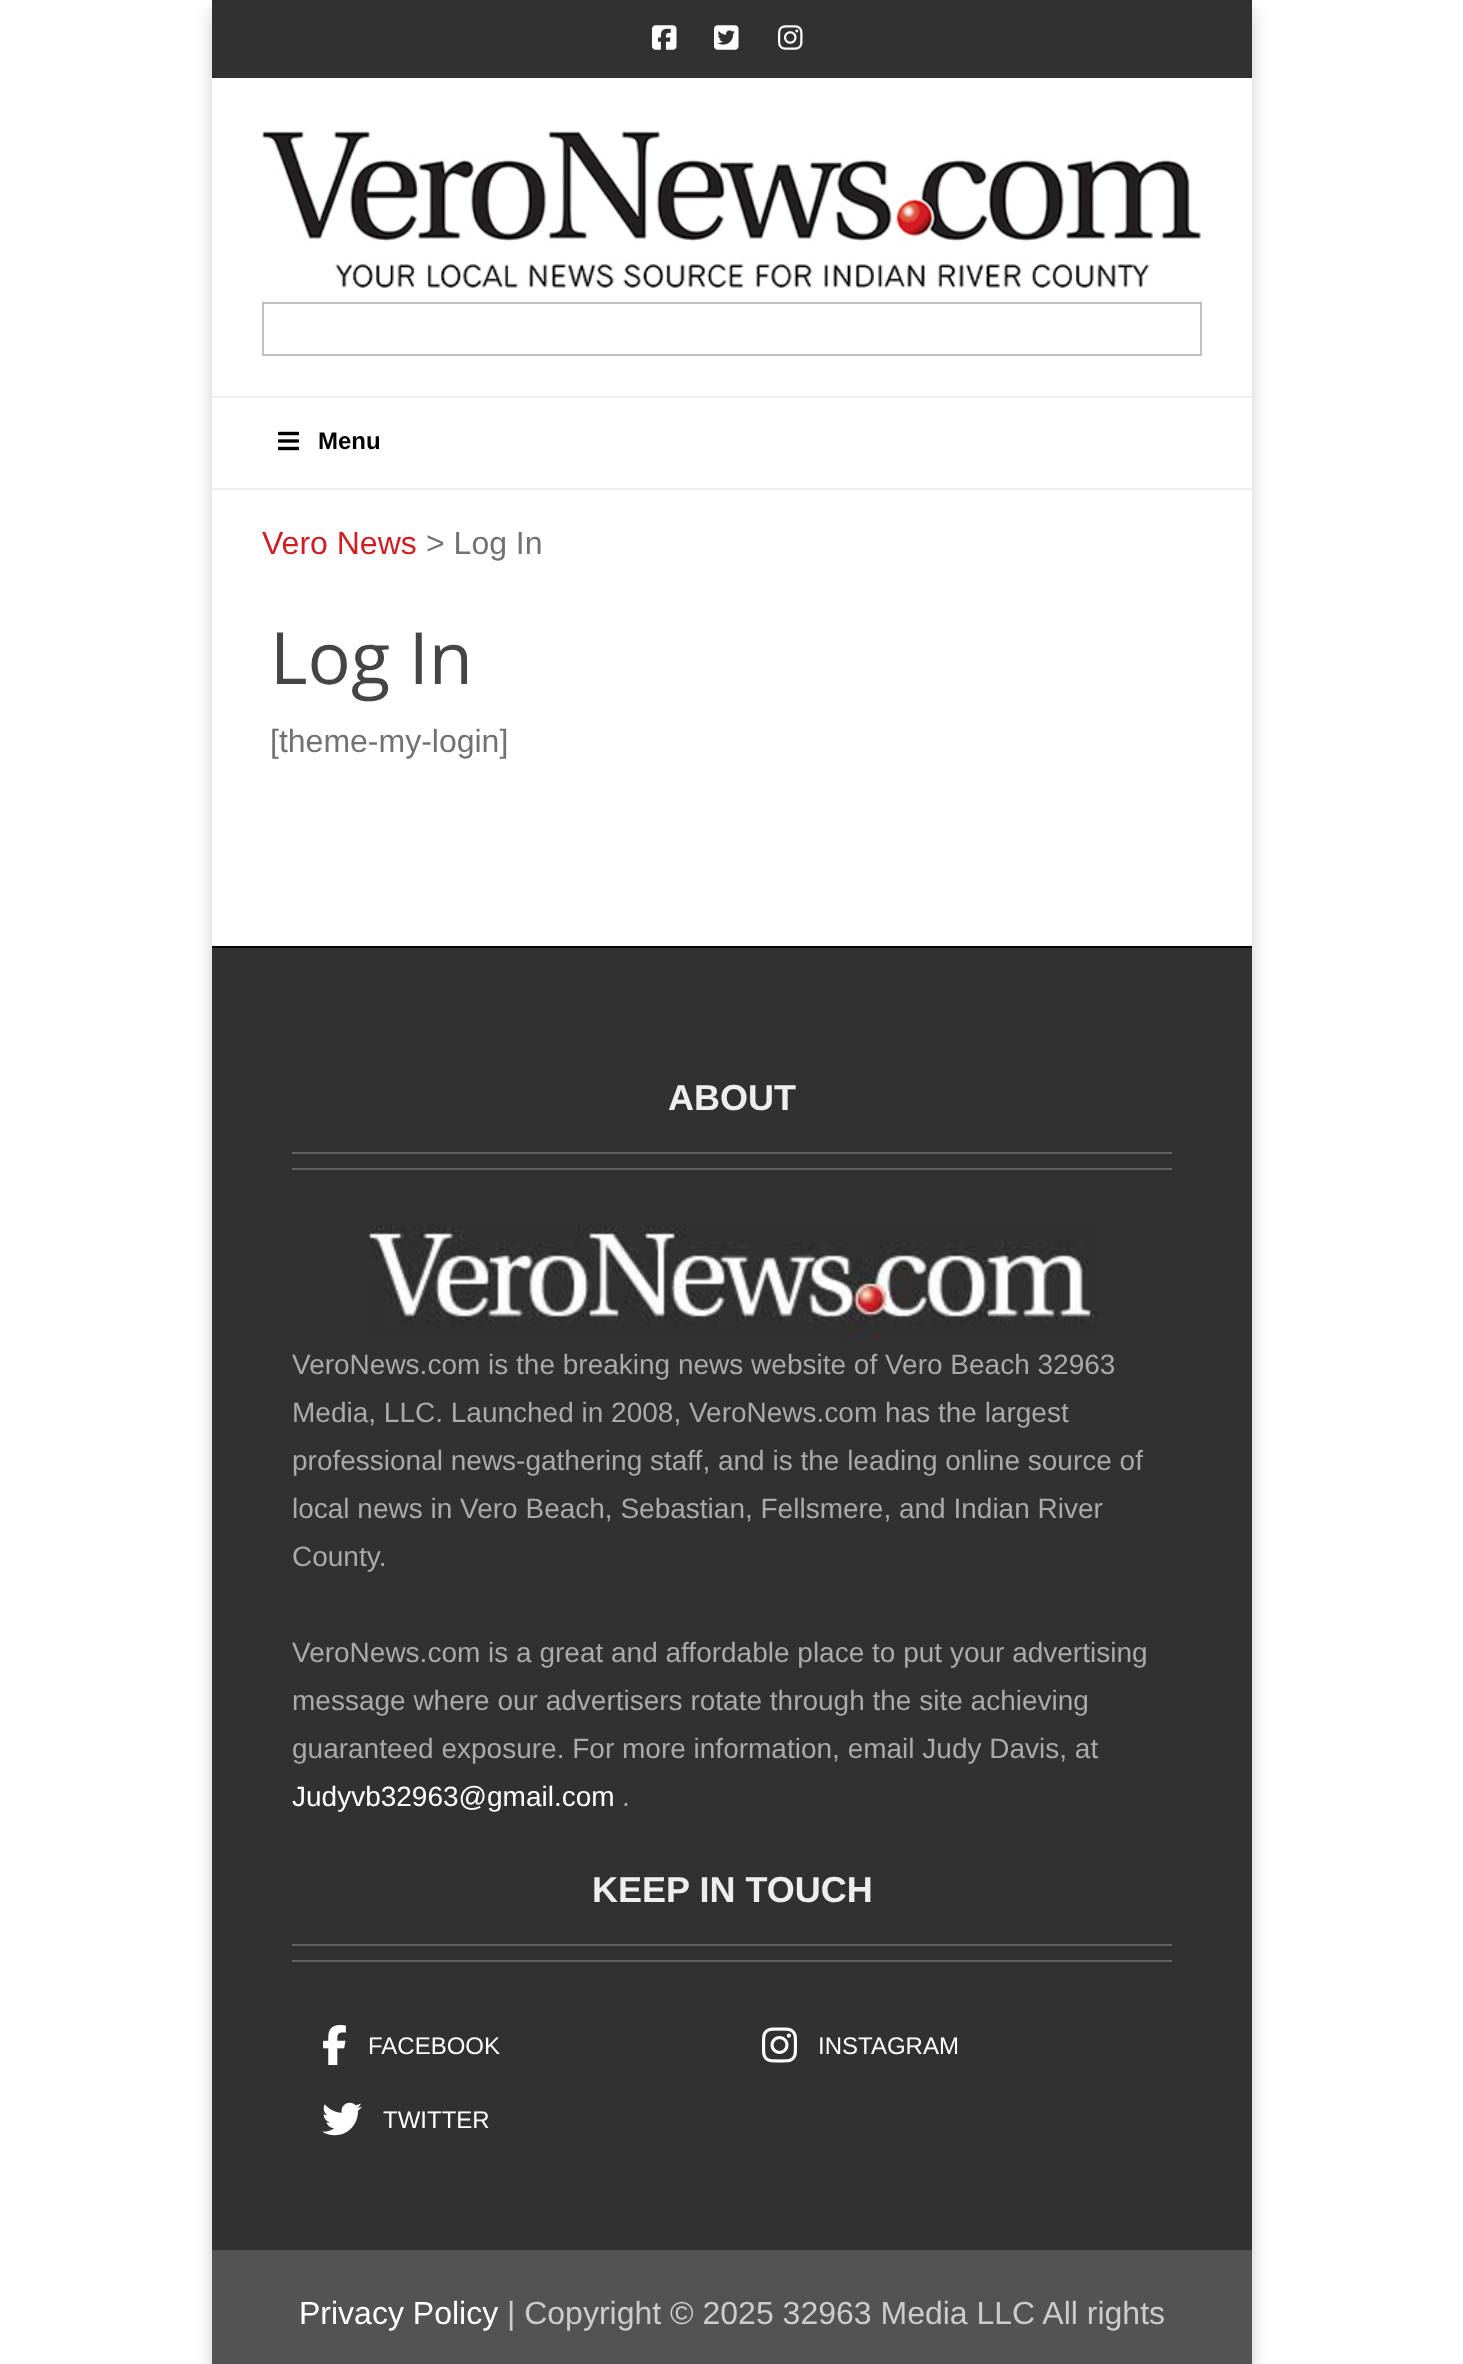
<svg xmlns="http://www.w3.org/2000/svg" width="1463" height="2364">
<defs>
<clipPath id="clip1"><path d="M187 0h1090v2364h-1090zm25-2h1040v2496h-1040z" clip-rule="evenodd"/></clipPath>
</defs>
<rect width="100%" height="100%" fill="#fff"/>
<g clip-path="url(#clip1)">
<rect x="212" y="8" width="1040" height="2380" fill="#00000033" filter="blur(8px)"/>
</g>
<rect x="212" width="1040" height="78" fill="#313131"/>
<image x="652" y="25" width="25" height="25" href="media/1.png"/>
<image x="714" y="25" width="25" height="25" href="media/2.png"/>
<image x="778" y="25" width="25" height="25" href="media/3.png"/>
<image x="262" y="130" width="940" height="158" href="media/4.png"/>
<rect x="263" y="303" width="938" height="52" fill="none" stroke="#c0c0c0" stroke-width="2"/>
<rect x="212" y="396" width="1040" height="2" fill="#eee"/>
<rect x="212" y="488" width="1040" height="2" fill="#eee"/>
<image x="278" y="431" width="21" height="20" href="media/5.png"/>
<text x="318" y="449" style="font-family:Liberation Sans;font-size:24px;font-weight:bold;fill:#000">Menu</text>
<text x="262" y="554" style="font-family:Liberation Sans;font-size:32px;fill:#cf1e24">Vero News</text>
<text x="426" y="554" style="font-family:Liberation Sans;font-size:32px;fill:#727272">&gt; Log In</text>
<text x="270" y="684" style="font-family:Open Sans;font-size:72px;fill:#454545">Log In</text>
<text x="270" y="752" style="font-family:Liberation Sans;font-size:32px;fill:#727272">[theme-my-login]</text>
<rect x="212" y="948" width="1040" height="1302" fill="#313131"/>
<rect x="212" y="946" width="1040" height="2" fill="#000"/>
<rect x="292" y="1168" width="880" height="2" fill="#616161"/>
<text x="668" y="1110" style="font-family:Liberation Sans;font-size:36px;font-weight:bold;fill:#eee">ABOUT</text>
<rect x="292" y="1152" width="880" height="2" fill="#616161"/>
<image x="368" y="1225" width="730" height="113" href="media/6.png"/>
<text x="292" y="1374" style="font-family:Liberation Sans;font-size:28px;fill:#a9aaaa">VeroNews.com is the breaking news website of Vero Beach 32963</text>
<text x="292" y="1422" style="font-family:Liberation Sans;font-size:28px;fill:#a9aaaa">Media, LLC. Launched in 2008, VeroNews.com has the largest</text>
<text x="292" y="1470" style="font-family:Liberation Sans;font-size:28px;fill:#a9aaaa">professional news-gathering staff, and is the leading online source of</text>
<text x="292" y="1518" style="font-family:Liberation Sans;font-size:28px;fill:#a9aaaa">local news in Vero Beach, Sebastian, Fellsmere, and Indian River</text>
<text x="292" y="1566" style="font-family:Liberation Sans;font-size:28px;fill:#a9aaaa">County.</text>
<text x="292" y="1662" style="font-family:Liberation Sans;font-size:28px;fill:#a9aaaa">VeroNews.com is a great and affordable place to put your advertising</text>
<text x="292" y="1710" style="font-family:Liberation Sans;font-size:28px;fill:#a9aaaa">message where our advertisers rotate through the site achieving</text>
<text x="292" y="1758" style="font-family:Liberation Sans;font-size:28px;fill:#a9aaaa">guaranteed exposure. For more information, email Judy Davis, at</text>
<text x="292" y="1806" style="font-family:Liberation Sans;font-size:28px;fill:#fff">Judyvb32963@gmail.com</text>
<text x="622" y="1806" style="font-family:Liberation Sans;font-size:28px;fill:#a9aaaa">.</text>
<rect x="292" y="1960" width="880" height="2" fill="#616161"/>
<text x="592" y="1902" style="font-family:Liberation Sans;font-size:36px;font-weight:bold;fill:#eee">KEEP IN TOUCH</text>
<rect x="292" y="1944" width="880" height="2" fill="#616161"/>
<image x="323" y="2025" width="23" height="40" href="media/7.png"/>
<text x="368" y="2054" style="font-family:Liberation Sans;font-size:24px;fill:#fff">FACEBOOK</text>
<image x="322" y="2102" width="40" height="34" href="media/8.png"/>
<text x="383" y="2128" style="font-family:Liberation Sans;font-size:24px;fill:#fff">TWITTER</text>
<image x="762" y="2027" width="35" height="36" href="media/9.png"/>
<text x="818" y="2054" style="font-family:Liberation Sans;font-size:24px;fill:#fff">INSTAGRAM</text>
<rect x="212" y="2250" width="1040" height="114" fill="#535353"/>
<text x="299" y="2324" style="font-family:Liberation Sans;font-size:32px;fill:#fff">Privacy Policy</text>
<text x="507" y="2324" style="font-family:Liberation Sans;font-size:32px;fill:#ccc">| Copyright © 2025 32963 Media LLC All rights</text>
</svg>
